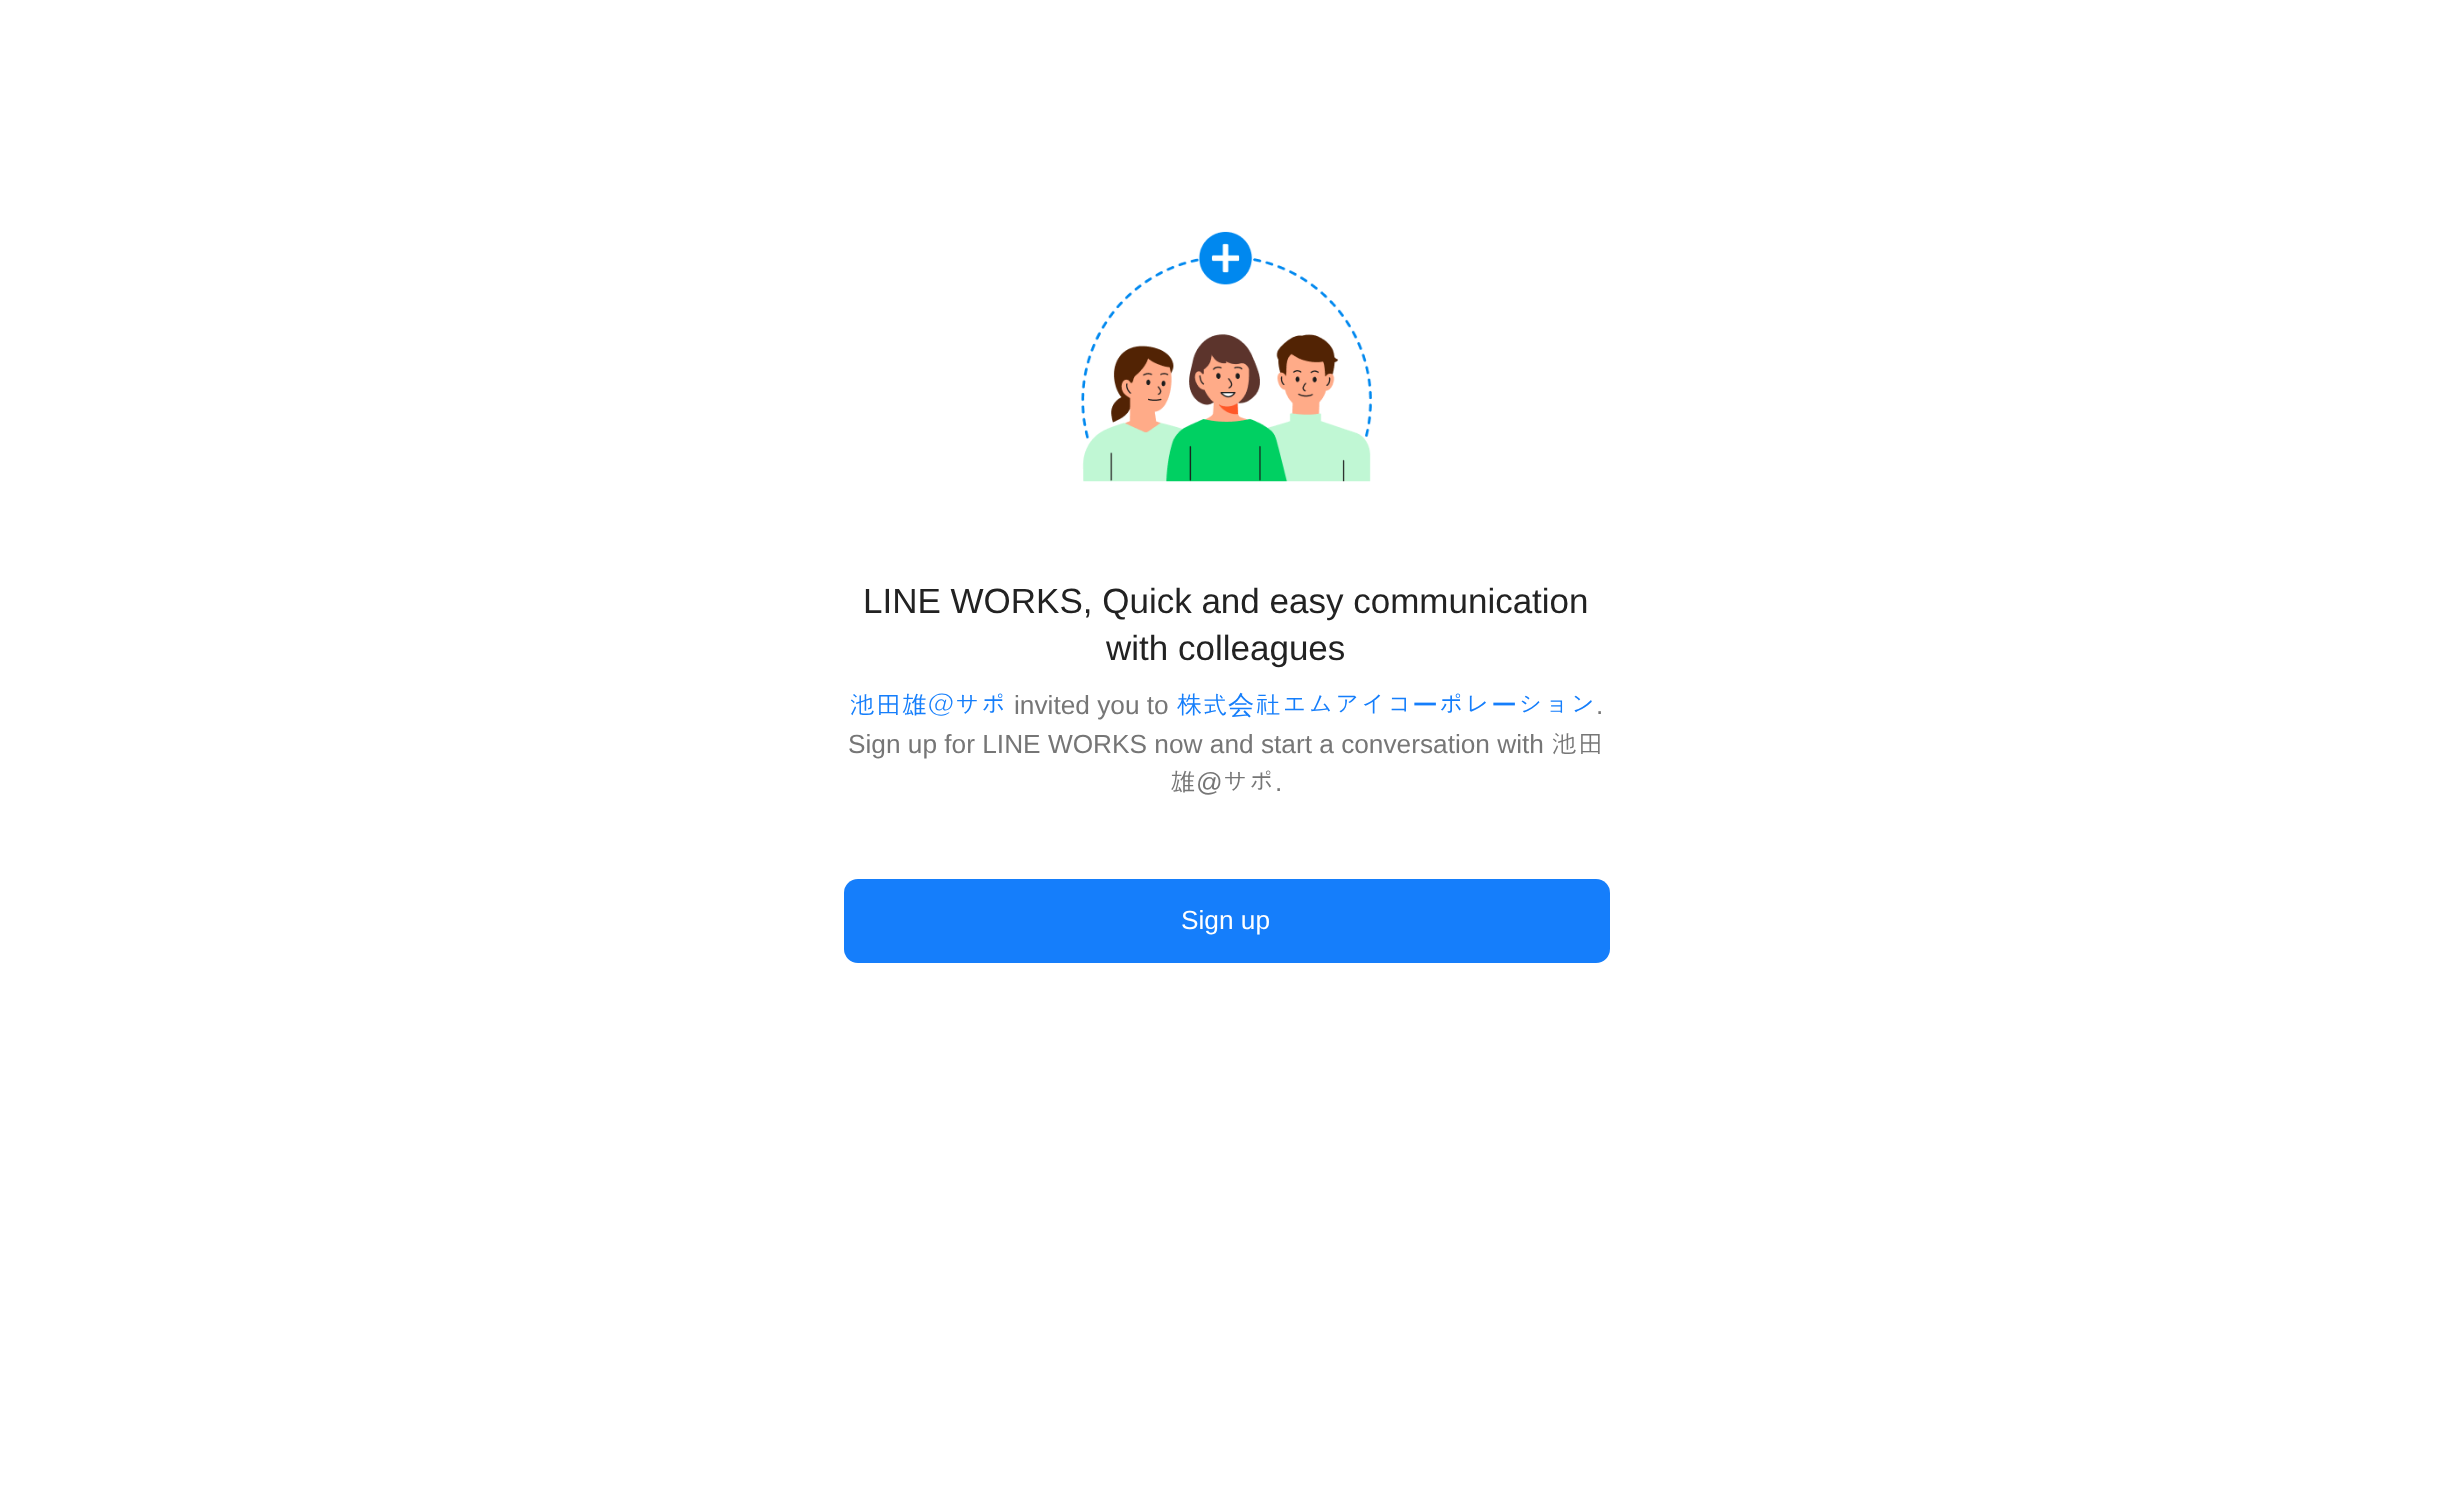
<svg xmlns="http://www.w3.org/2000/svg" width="2451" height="1507">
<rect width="100%" height="100%" fill="#fff"/>
<image x="1081" y="231" width="291" height="251" href="media/1.png"/>
<text x="863" y="613" style="font-family:Liberation Sans;font-size:35px;fill:#222">LINE WORKS, Quick and easy communication</text>
<text x="1106" y="660" style="font-family:Liberation Sans;font-size:35px;fill:#222">with colleagues</text>
<text x="849" y="714" style="font-family:Dotum;font-size:26.25px;fill:#157efb">池田雄@サポ</text>
<text x="1014" y="714" style="font-family:Liberation Sans;font-size:26.25px;fill:#767676">invited you to</text>
<text x="1176" y="714" style="font-family:Dotum;font-size:26.25px;fill:#157efb">株式</text>
<text x="1228" y="714" style="font-family:WenQuanYi Zen Hei;font-size:26.25px;font-weight:500;fill:#157efb">会</text>
<text x="1255" y="714" style="font-family:Dotum;font-size:26.25px;fill:#157efb">社エムアイコ</text>
<text x="1412" y="714" style="font-family:WenQuanYi Zen Hei;font-size:26.25px;font-weight:500;fill:#157efb">ー</text>
<text x="1438" y="714" style="font-family:Dotum;font-size:26.25px;fill:#157efb">ポレ</text>
<text x="1491" y="714" style="font-family:WenQuanYi Zen Hei;font-size:26.25px;font-weight:500;fill:#157efb">ー</text>
<text x="1517" y="714" style="font-family:Dotum;font-size:26.25px;fill:#157efb">ション</text>
<text x="1596" y="714" style="font-family:Liberation Sans;font-size:26.25px;fill:#767676">.</text>
<text x="848" y="753" style="font-family:Liberation Sans;font-size:26.25px;fill:#767676">Sign up for LINE WORKS now and start a conversation with</text>
<text x="1551" y="753" style="font-family:Dotum;font-size:26.25px;fill:#767676">池田</text>
<text x="1170" y="791" style="font-family:Dotum;font-size:26.25px;fill:#767676">雄</text>
<text x="1196" y="791" style="font-family:Liberation Sans;font-size:26.25px;fill:#767676">@</text>
<text x="1222" y="791" style="font-family:Dotum;font-size:26.25px;fill:#767676">サポ</text>
<text x="1275" y="791" style="font-family:Liberation Sans;font-size:26.25px;fill:#767676">.</text>
<rect x="844" y="879" width="766" height="84" rx="14" fill="#157efb"/>
<text x="1181" y="929" style="font-family:Liberation Sans;font-size:26.25px;fill:#fff">Sign up</text>
</svg>
